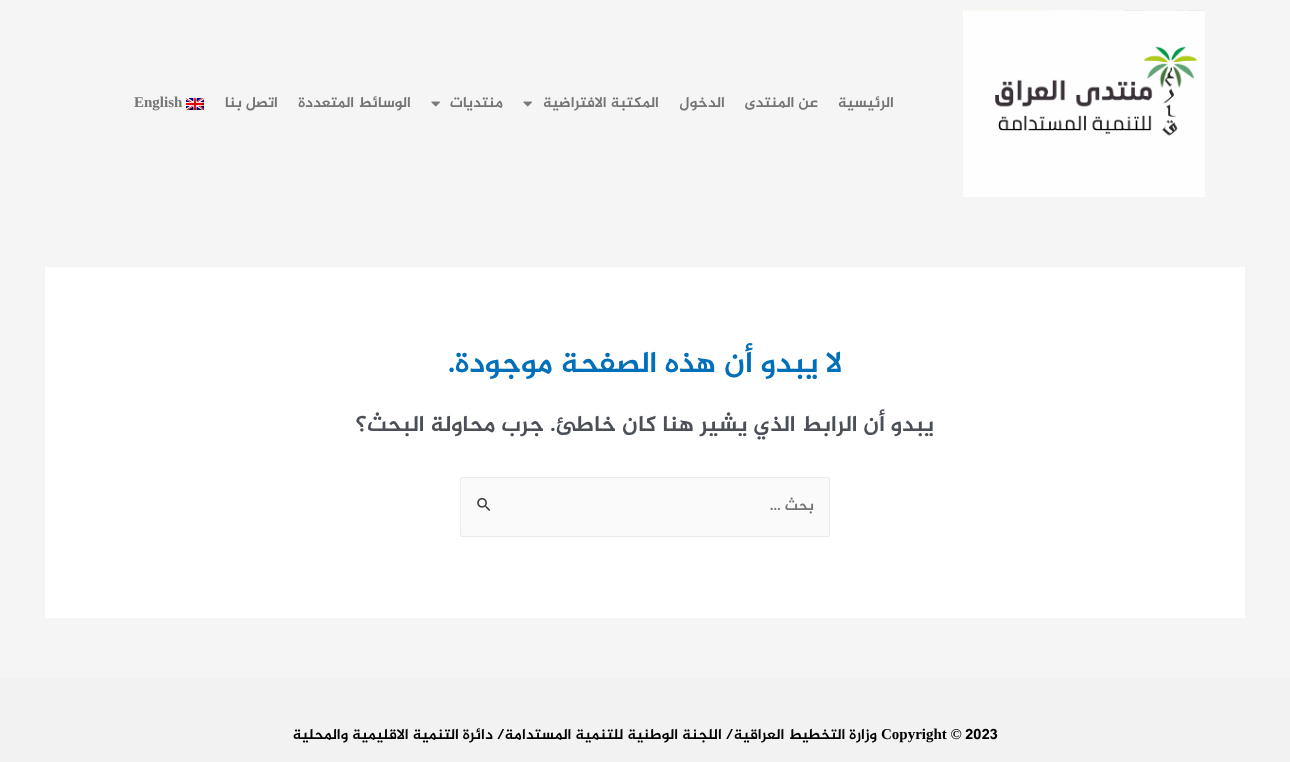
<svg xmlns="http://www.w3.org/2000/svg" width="1290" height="762">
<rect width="100%" height="100%" fill="#f5f5f5"/>
<image x="963" y="10" width="242" height="187" href="media/1.png"/>
<text x="894" y="107" style="font-family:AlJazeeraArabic;font-size:15px;font-weight:bold;direction:rtl;fill:#757575">الرئيسية</text>
<text x="818" y="107" style="font-family:AlJazeeraArabic;font-size:15px;font-weight:bold;direction:rtl;fill:#757575">عن المنتدى</text>
<text x="725" y="107" style="font-family:AlJazeeraArabic;font-size:15px;font-weight:bold;direction:rtl;fill:#757575">الدخول</text>
<text x="659" y="107" style="font-family:AlJazeeraArabic;font-size:15px;font-weight:bold;direction:rtl;fill:#757575">المكتبة الافتراضية</text>
<image x="523" y="101" width="9" height="6" href="media/2.png"/>
<text x="503" y="107" style="font-family:AlJazeeraArabic;font-size:15px;font-weight:bold;direction:rtl;fill:#757575">منتديات</text>
<image x="431" y="101" width="9" height="6" href="media/2.png"/>
<text x="411" y="107" style="font-family:AlJazeeraArabic;font-size:15px;font-weight:bold;direction:rtl;fill:#757575">الوسائط المتعددة</text>
<text x="278" y="107" style="font-family:AlJazeeraArabic;font-size:15px;font-weight:bold;direction:rtl;fill:#757575">اتصل بنا</text>
<image x="186" y="98" width="18" height="12" href="media/3.png"/>
<text x="134" y="107" style="font-family:Liberation Serif;font-size:15px;font-weight:bold;fill:#757575">English</text>
<rect x="45" y="267" width="1200" height="351" fill="#fff"/>
<text x="842" y="372" style="font-family:AlJazeeraArabic;font-size:30px;font-weight:bold;direction:rtl;fill:#0170b9">لا يبدو أن هذه الصفحة موجودة.</text>
<text x="934" y="431" style="font-family:AlJazeeraArabic;font-size:22.5px;font-weight:bold;direction:rtl;fill:#4b4f58">يبدو أن الرابط الذي يشير هنا كان خاطئ. جرب محاولة البحث؟</text>
<rect x="460.5" y="477.5" width="369" height="59" rx="1.5" fill="#fafafa" stroke="#eaeaea"/>
<text x="814" y="510" style="font-family:AlJazeeraArabic;font-size:15px;font-weight:bold;direction:rtl;fill:#757575">بحث …</text>
<image x="477" y="497" width="14" height="14" href="media/4.png"/>
<rect y="678" width="1290" height="84" fill="#f2f2f2"/>
<text x="965" y="739" style="font-family:AlJazeeraArabic;font-size:15px;font-weight:bold;fill:#000">2023</text>
<text x="881" y="739" style="font-family:Liberation Serif;font-size:15px;font-weight:bold;fill:#000">Copyright ©</text>
<text x="877" y="739" style="font-family:AlJazeeraArabic;font-size:15px;font-weight:bold;direction:rtl;fill:#000">وزارة التخطيط العراقية/ اللجنة الوطنية للتنمية المستدامة/ دائرة التنمية الاقليمية والمحلية</text>
</svg>
